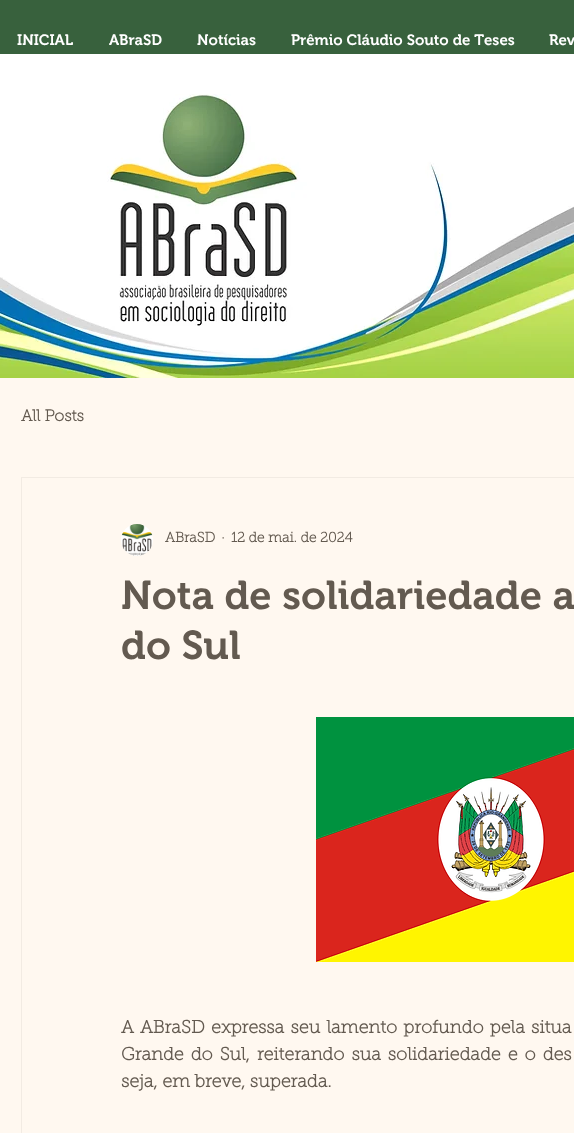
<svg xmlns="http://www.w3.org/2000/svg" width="574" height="1133">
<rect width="100%" height="100%" fill="#fff8f0"/>
<rect width="574" height="54" fill="#38613d"/>
<text x="17" y="45" style="font-family:'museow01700';font-size:15px;font-weight:600;fill:#fff">INICIAL</text>
<text x="109" y="45" style="font-family:'museow01700';font-size:15px;font-weight:600;fill:#fff">ABraSD</text>
<text x="197" y="45" style="font-family:'museow01700';font-size:15px;font-weight:600;fill:#fff">Notícias</text>
<text x="291" y="45" style="font-family:'museow01700';font-size:15px;font-weight:600;fill:#fff">Prêmio Cláudio Souto de Teses</text>
<text x="549" y="45" style="font-family:'museow01700';font-size:15px;font-weight:600;fill:#fff">Rev</text>
<image x="0" y="54" width="574" height="324" href="media/1.png"/>
<text x="21" y="421" style="font-family:'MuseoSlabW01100';font-size:16px;font-weight:bold;fill:#635a50">All Posts</text>
<rect x="21.5" y="477.5" width="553" height="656" fill="none" stroke="#f2ebe3"/>
<image x="121" y="524" width="32" height="32" href="media/2.png"/>
<text x="165" y="542" style="font-family:'MuseoSlabW01100';font-size:14px;font-weight:bold;fill:#635a50">ABraSD</text>
<text x="221" y="542" style="font-family:'MuseoSlabW01100';font-size:14px;font-weight:bold;fill:#635a50">·</text>
<text x="231" y="542" style="font-family:'MuseoSlabW01100';font-size:14px;font-weight:bold;fill:#635a50">12 de mai. de 2024</text>
<text x="121" y="609" style="font-family:'museow01700';font-size:40px;font-weight:600;fill:#635a50">Nota de solidariedade a</text>
<text x="121" y="659" style="font-family:'museow01700';font-size:40px;font-weight:600;fill:#635a50">do Sul</text>
<image x="316" y="717" width="258" height="245" href="media/3.png"/>
<text x="121" y="1033" word-spacing="1.75" style="font-family:'MuseoSlabW01100';font-size:18px;font-weight:bold;fill:#635a50">A ABraSD expressa seu lamento profundo pela situa</text>
<text x="121" y="1060" word-spacing="2.5" style="font-family:'MuseoSlabW01100';font-size:18px;font-weight:bold;fill:#635a50">Grande do Sul, reiterando sua solidariedade e o des</text>
<text x="121" y="1087" style="font-family:'MuseoSlabW01100';font-size:18px;font-weight:bold;fill:#635a50">seja, em breve, superada.</text>
</svg>
